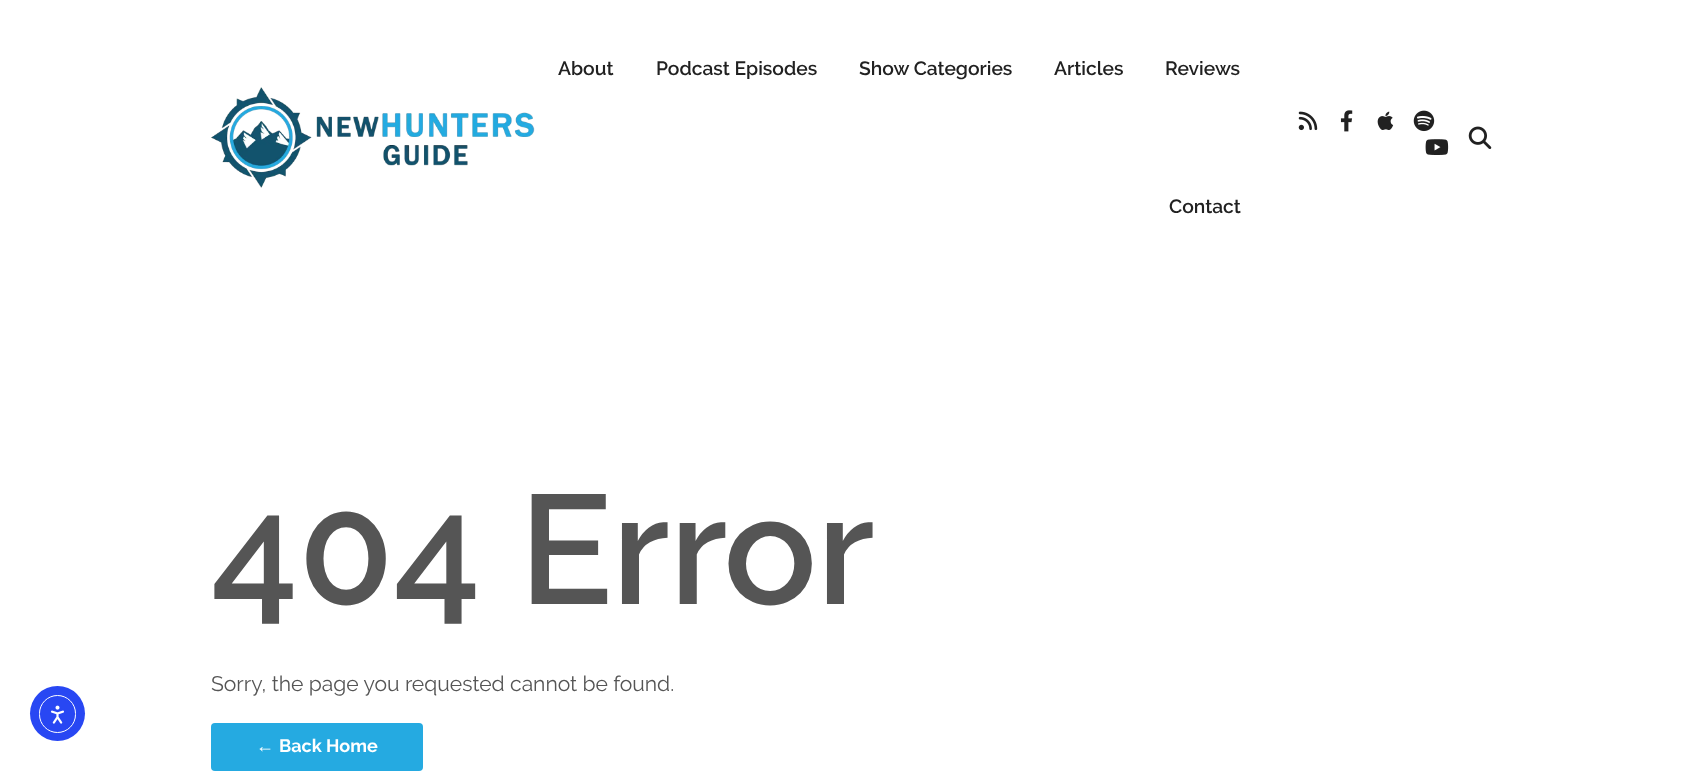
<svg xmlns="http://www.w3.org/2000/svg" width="1702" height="771">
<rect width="100%" height="100%" fill="#fff"/>
<circle cx="57.5" cy="713.5" r="27.5" fill="#2847f3"/>
<rect x="39.5" y="695.5" width="36" height="37" rx="18" fill="none" stroke="#fff"/>
<image x="50" y="705" width="14" height="19" href="media/1.png"/>
<image x="211" y="87" width="324" height="101" href="media/2.png"/>
<text x="558" y="75" style="font-family:Raleway;font-size:19.25px;font-weight:600;fill:#212121">About</text>
<text x="656" y="75" style="font-family:Raleway;font-size:19.25px;font-weight:600;fill:#212121">Podcast Episodes</text>
<text x="859" y="75" style="font-family:Raleway;font-size:19.25px;font-weight:600;fill:#212121">Show Categories</text>
<text x="1054" y="75" style="font-family:Raleway;font-size:19.25px;font-weight:600;fill:#212121">Articles</text>
<text x="1165" y="75" style="font-family:Raleway;font-size:19.25px;font-weight:600;fill:#212121">Reviews</text>
<text x="1169" y="213" style="font-family:Raleway;font-size:19.25px;font-weight:600;fill:#212121">Contact</text>
<image x="1298" y="111" width="20" height="20" href="media/3.png"/>
<image x="1340" y="110" width="13" height="22" href="media/4.png"/>
<image x="1377" y="111" width="17" height="19" href="media/5.png"/>
<image x="1413" y="110" width="22" height="22" href="media/6.png"/>
<image x="1425" y="139" width="24" height="16" href="media/7.png"/>
<image x="1468" y="126" width="24" height="23" href="media/8.png"/>
<text x="211" y="604" style="font-family:Raleway;font-size:155px;font-weight:600;fill:#555">404 Error</text>
<text x="211" y="691" style="font-family:Raleway;font-size:21.1px;fill:#555">Sorry, the page you requested cannot be found.</text>
<rect x="211" y="723" width="212" height="48" rx="4" fill="#25aae1"/>
<text x="256" y="752" style="font-family:Liberation Sans;font-size:18px;font-weight:bold;fill:#fff">←</text>
<text x="279" y="752" style="font-family:Raleway;font-size:18px;font-weight:bold;fill:#fff">Back Home</text>
</svg>
